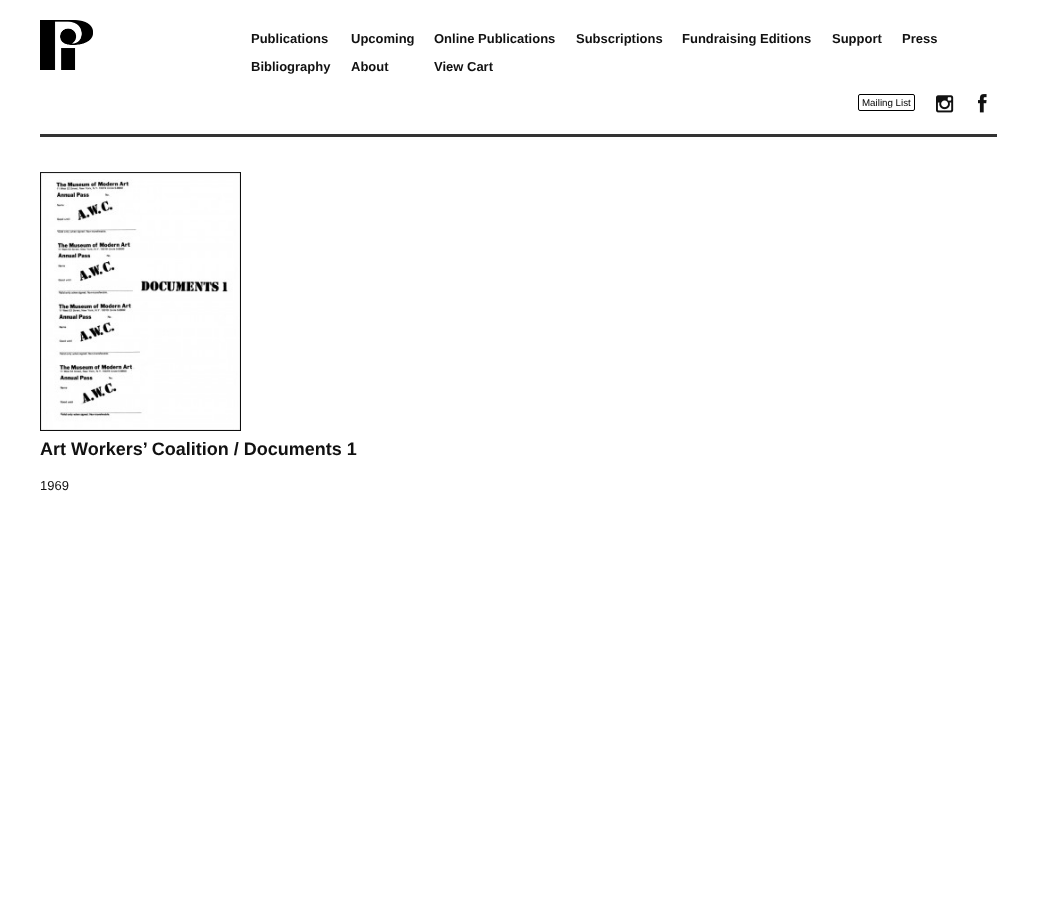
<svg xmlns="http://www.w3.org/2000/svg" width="1037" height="908">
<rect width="100%" height="100%" fill="#fff"/>
<rect x="40" y="134" width="957" height="3" fill="#333"/>
<image x="40" y="20" width="53" height="50" href="media/1.png"/>
<text x="251" y="43" style="font-family:Liberation Sans;font-size:13px;font-weight:bold;fill:#111">Publications</text>
<text x="351" y="43" style="font-family:Liberation Sans;font-size:13px;font-weight:bold;fill:#111">Upcoming</text>
<text x="434" y="43" style="font-family:Liberation Sans;font-size:13px;font-weight:bold;fill:#111">Online Publications</text>
<text x="576" y="43" style="font-family:Liberation Sans;font-size:13px;font-weight:bold;fill:#111">Subscriptions</text>
<text x="682" y="43" style="font-family:Liberation Sans;font-size:13px;font-weight:bold;fill:#111">Fundraising Editions</text>
<text x="832" y="43" style="font-family:Liberation Sans;font-size:13px;font-weight:bold;fill:#111">Support</text>
<text x="902" y="43" style="font-family:Liberation Sans;font-size:13px;font-weight:bold;fill:#111">Press</text>
<text x="251" y="71" style="font-family:Liberation Sans;font-size:13px;font-weight:bold;fill:#111">Bibliography</text>
<text x="351" y="71" style="font-family:Liberation Sans;font-size:13px;font-weight:bold;fill:#111">About</text>
<text x="434" y="71" style="font-family:Liberation Sans;font-size:13px;font-weight:bold;fill:#111">View Cart</text>
<rect x="858.5" y="94.5" width="56" height="16" rx="1.5" fill="none" stroke="#000"/>
<text x="862" y="106" style="font-family:Liberation Sans;font-size:9.75px;fill:#000">Mailing List</text>
<image x="936" y="95" width="18" height="18" href="media/2.png"/>
<image x="978" y="94" width="9" height="19" href="media/3.png"/>
<image x="40" y="172" width="201" height="259" href="media/4.png"/>
<text x="40" y="455" style="font-family:Liberation Sans;font-size:18px;font-weight:bold;fill:#111">Art Workers’ Coalition / Documents 1</text>
<text x="40" y="490" style="font-family:Liberation Sans;font-size:13px;fill:#111">1969</text>
</svg>
